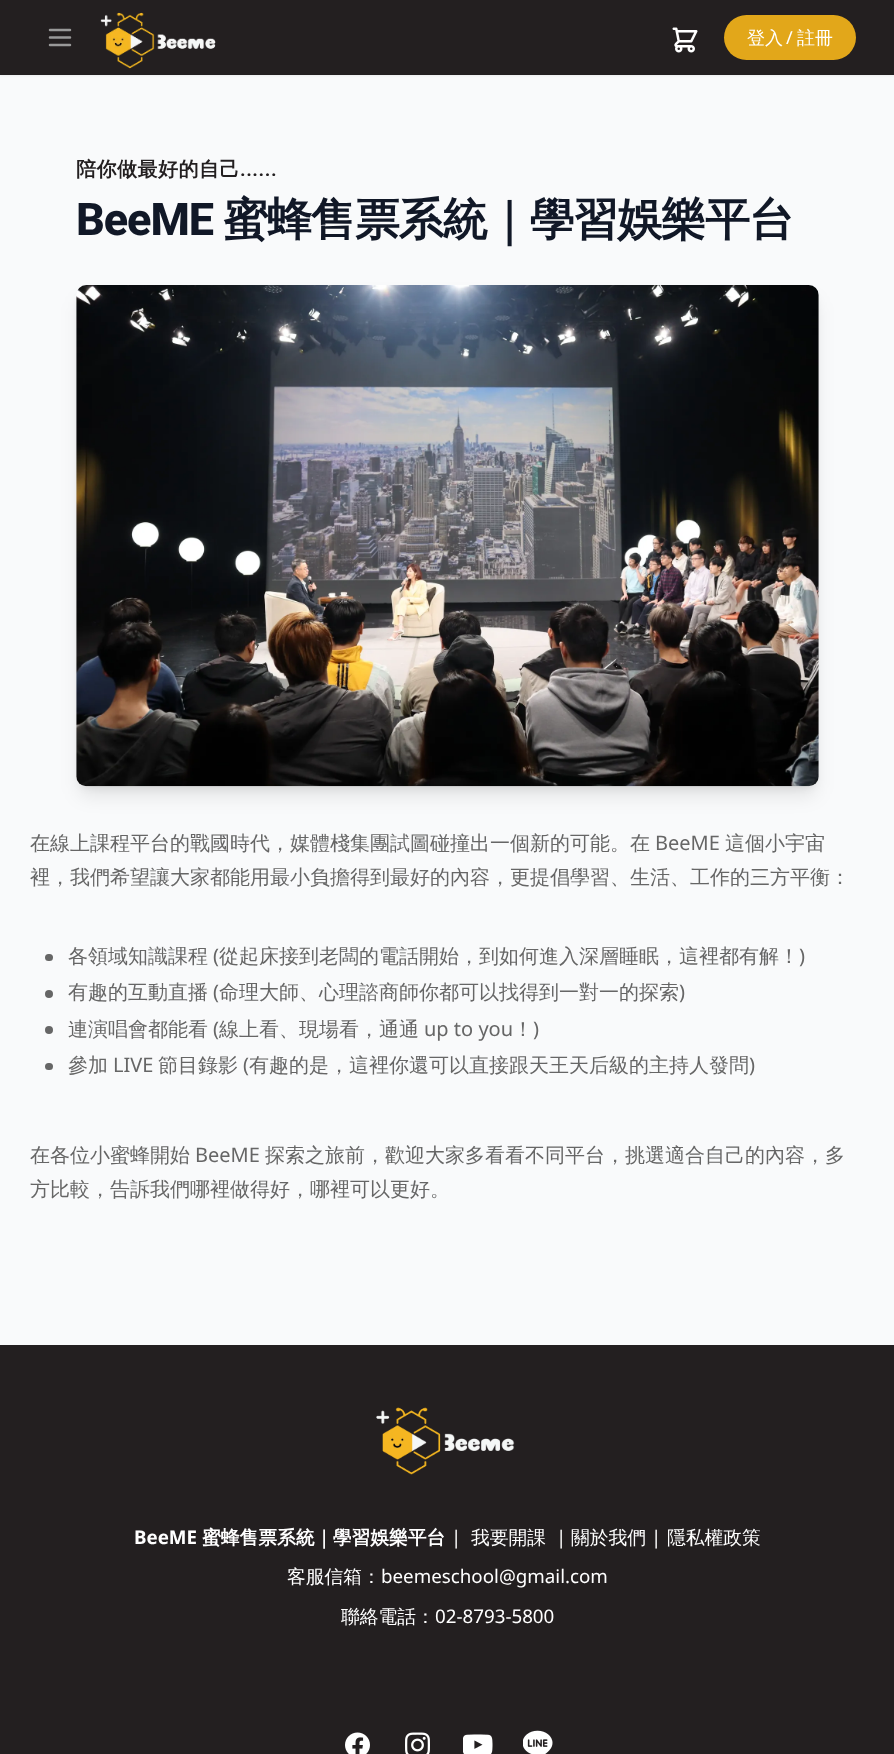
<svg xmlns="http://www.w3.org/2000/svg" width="894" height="1754">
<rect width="100%" height="100%" fill="#f9fafb"/>
<rect y="1" width="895" height="75" fill="#0000000d" filter="blur(1px)"/>
<rect width="894" height="75" fill="#231f20"/>
<path d="M50 30h20m-20 7.5h20m-20 7.5h20" fill="none" stroke="#999" stroke-width="2.5" stroke-linecap="round" stroke-linejoin="round"/>
<image x="100" y="12" width="116" height="57" href="media/1.png"/>
<image x="672" y="27" width="26" height="26" href="media/2.png"/>
<rect x="724" y="15" width="132" height="45" rx="22.5" fill="#e2a71a"/>
<text x="747" y="44" style="font-family:WenQuanYi Zen Hei;font-size:18px;font-weight:500;fill:#fff">登入</text>
<text x="786" y="44" style="font-family:Noto Sans;font-size:18px;fill:#fff">/</text>
<text x="797" y="44" style="font-family:WenQuanYi Zen Hei;font-size:18px;font-weight:500;fill:#fff">註冊</text>
<text x="76" y="176" style="font-family:WenQuanYi Zen Hei;font-size:20px;font-weight:bold;letter-spacing:0.5px;fill:#231f20">陪你做最好的自己</text>
<text x="240" y="176" style="font-family:Roboto;font-size:20px;font-weight:600;letter-spacing:0.5px;fill:#231f20">......</text>
<text x="76" y="235" style="font-family:Roboto;font-size:45px;font-weight:800;letter-spacing:-1.1px;fill:#111827">BeeME</text>
<text x="223" y="235" style="font-family:WenQuanYi Zen Hei;font-size:45px;font-weight:bold;letter-spacing:-1.1px;fill:#111827">蜜蜂售票系統｜學習娛樂平台</text>
<rect x="81" y="295" width="733" height="491" rx="5" fill="#0000001a" filter="blur(4px)"/>
<rect x="80" y="301" width="735" height="494" rx="6" fill="#0000001a" filter="blur(9.5px)"/>
<image x="76" y="285" width="743" height="502" href="media/3.png"/>
<text x="30" y="850" style="font-family:WenQuanYi Zen Hei;font-size:20px;font-weight:500;fill:#666">在線上課程平台的戰國時代，媒體棧集團試圖碰撞出一個新的可能。在</text>
<text x="655" y="850" style="font-family:Noto Sans;font-size:20px;fill:#666">BeeME</text>
<text x="725" y="850" style="font-family:WenQuanYi Zen Hei;font-size:20px;font-weight:500;fill:#666">這個小宇宙</text>
<text x="30" y="884" style="font-family:WenQuanYi Zen Hei;font-size:20px;font-weight:500;fill:#666">裡，我們希望讓大家都能用最小負擔得到最好的內容，更提倡學習、生活、工作的三方平衡：</text>
<rect x="45" y="954" width="8" height="7" rx="3.5" fill="#666"/>
<text x="68" y="963" style="font-family:WenQuanYi Zen Hei;font-size:20px;font-weight:500;fill:#666">各領域知識課程</text>
<text x="213" y="963" style="font-family:Noto Sans;font-size:20px;fill:#666">(</text>
<text x="219" y="963" style="font-family:WenQuanYi Zen Hei;font-size:20px;font-weight:500;fill:#666">從起床接到老闆的電話開始，到如何進入深層睡眠，這裡都有解！</text>
<text x="799" y="963" style="font-family:Noto Sans;font-size:20px;fill:#666">)</text>
<circle cx="49" cy="994" r="4" fill="#666"/>
<text x="68" y="999" style="font-family:WenQuanYi Zen Hei;font-size:20px;font-weight:500;fill:#666">有趣的互動直播</text>
<text x="213" y="999" style="font-family:Noto Sans;font-size:20px;fill:#666">(</text>
<text x="219" y="999" style="font-family:WenQuanYi Zen Hei;font-size:20px;font-weight:500;fill:#666">命理大師、心理諮商師你都可以找得到一對一的探索</text>
<text x="679" y="999" style="font-family:Noto Sans;font-size:20px;fill:#666">)</text>
<circle cx="49" cy="1030" r="4" fill="#666"/>
<text x="68" y="1036" style="font-family:WenQuanYi Zen Hei;font-size:20px;font-weight:500;fill:#666">連演唱會都能看</text>
<text x="213" y="1036" style="font-family:Noto Sans;font-size:20px;fill:#666">(</text>
<text x="219" y="1036" style="font-family:WenQuanYi Zen Hei;font-size:20px;font-weight:500;fill:#666">線上看、現場看，通通</text>
<text x="424" y="1036" style="font-family:Noto Sans;font-size:20px;fill:#666">up to you</text>
<text x="513" y="1036" style="font-family:WenQuanYi Zen Hei;font-size:20px;font-weight:500;fill:#666">！</text>
<text x="533" y="1036" style="font-family:Noto Sans;font-size:20px;fill:#666">)</text>
<rect x="45" y="1063" width="8" height="7" rx="3.5" fill="#666"/>
<text x="68" y="1072" style="font-family:WenQuanYi Zen Hei;font-size:20px;font-weight:500;fill:#666">參加</text>
<text x="113" y="1072" style="font-family:Noto Sans;font-size:20px;fill:#666">LIVE</text>
<text x="158" y="1072" style="font-family:WenQuanYi Zen Hei;font-size:20px;font-weight:500;fill:#666">節目錄影</text>
<text x="243" y="1072" style="font-family:Noto Sans;font-size:20px;fill:#666">(</text>
<text x="249" y="1072" style="font-family:WenQuanYi Zen Hei;font-size:20px;font-weight:500;fill:#666">有趣的是，這裡你還可以直接跟天王天后級的主持人發問</text>
<text x="749" y="1072" style="font-family:Noto Sans;font-size:20px;fill:#666">)</text>
<text x="30" y="1162" style="font-family:WenQuanYi Zen Hei;font-size:20px;font-weight:500;fill:#666">在各位小蜜蜂開始</text>
<text x="195" y="1162" style="font-family:Noto Sans;font-size:20px;fill:#666">BeeME</text>
<text x="265" y="1162" style="font-family:WenQuanYi Zen Hei;font-size:20px;font-weight:500;fill:#666">探索之旅前，歡迎大家多看看不同平台，挑選適合自己的內容，多</text>
<text x="30" y="1196" style="font-family:WenQuanYi Zen Hei;font-size:20px;font-weight:500;fill:#666">方比較，告訴我們哪裡做得好，哪裡可以更好。</text>
<rect y="1345" width="894" height="409" fill="#231f20"/>
<image x="376" y="1407" width="139" height="68" href="media/4.png"/>
<text x="134" y="1544" style="font-family:Noto Sans;font-size:18.75px;font-weight:bold;fill:#fff">BeeME</text>
<text x="202" y="1544" style="font-family:WenQuanYi Zen Hei;font-size:18.75px;font-weight:bold;fill:#fff">蜜蜂售票系統｜學習娛樂平台</text>
<text x="451" y="1544" style="font-family:Noto Sans;font-size:18.75px;fill:#fff">|</text>
<text x="471" y="1544" style="font-family:WenQuanYi Zen Hei;font-size:18.75px;font-weight:500;fill:#fff">我要開課</text>
<text x="556" y="1544" style="font-family:Noto Sans;font-size:18.75px;fill:#fff">|</text>
<text x="571" y="1544" style="font-family:WenQuanYi Zen Hei;font-size:18.75px;font-weight:500;fill:#fff">關於我們</text>
<text x="651" y="1544" style="font-family:Noto Sans;font-size:18.75px;fill:#fff">|</text>
<text x="667" y="1544" style="font-family:WenQuanYi Zen Hei;font-size:18.75px;font-weight:500;fill:#fff">隱私權政策</text>
<text x="287" y="1583" style="font-family:WenQuanYi Zen Hei;font-size:18.75px;font-weight:500;fill:#fff">客服信箱：</text>
<text x="381" y="1583" style="font-family:Noto Sans;font-size:18.75px;fill:#fff">beemeschool@gmail.com</text>
<text x="341" y="1623" style="font-family:WenQuanYi Zen Hei;font-size:18.75px;font-weight:500;fill:#fff">聯絡電話：</text>
<text x="435" y="1623" style="font-family:Noto Sans;font-size:18.75px;fill:#fff">02-8793-5800</text>
<image x="345" y="1732" width="25" height="22" href="media/5.png"/>
<image x="405" y="1732" width="25" height="22" href="media/6.png"/>
<image x="463" y="1734" width="30" height="20" href="media/7.png"/>
<image x="523" y="1730" width="30" height="24" href="media/8.png"/>
</svg>
